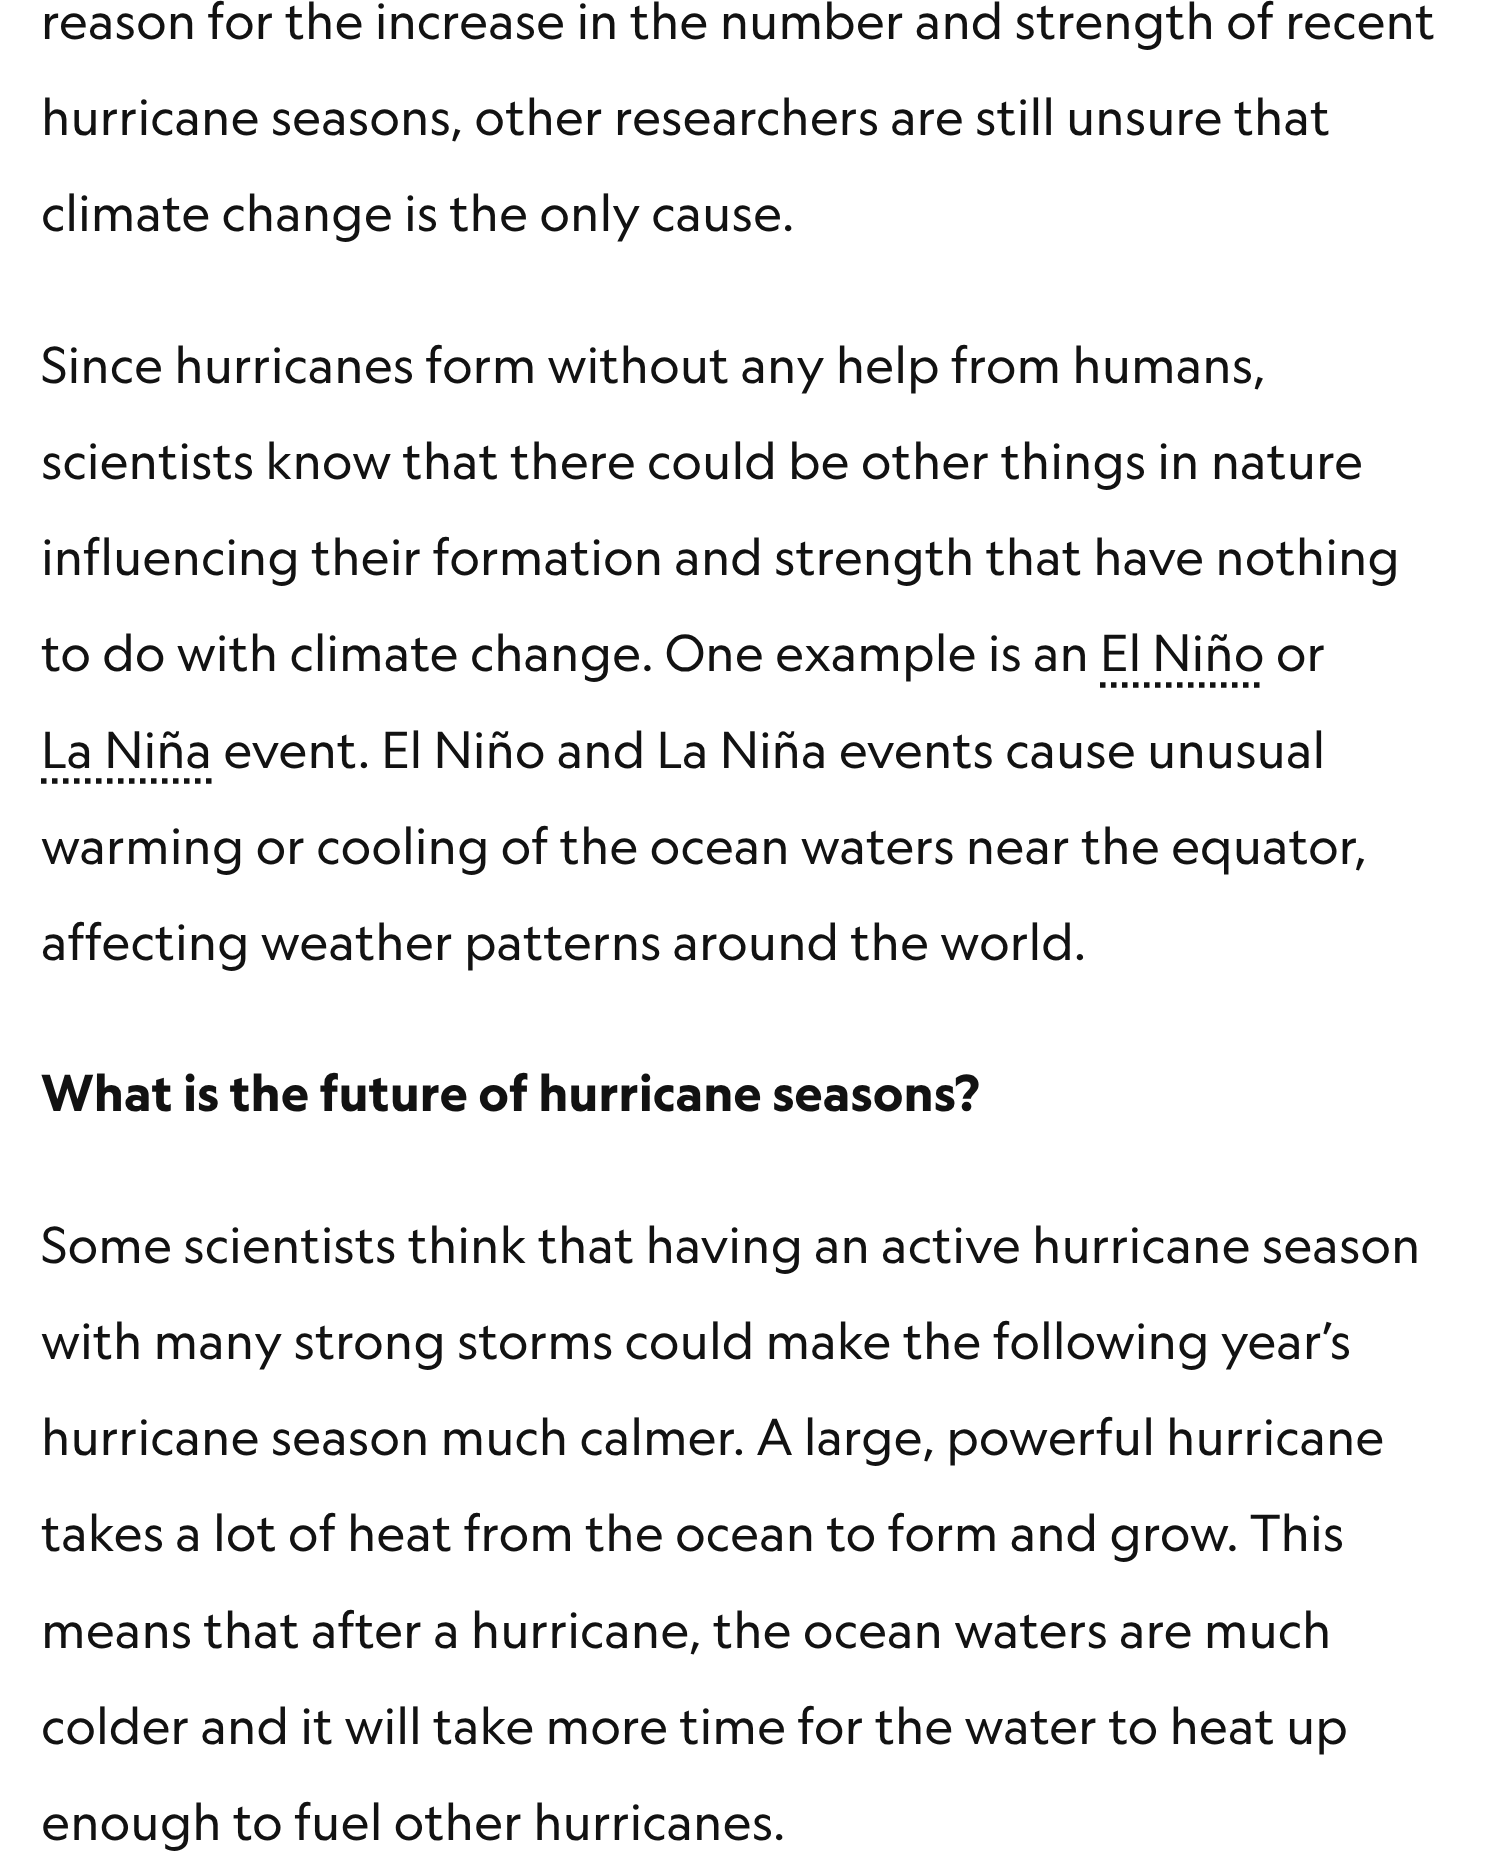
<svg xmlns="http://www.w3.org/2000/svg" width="1494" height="1870">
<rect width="100%" height="100%" fill="#fff"/>
<text x="41" y="39" style="font-family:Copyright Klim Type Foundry;font-size:49.5px;fill:#121212">reason for the increase in the number and strength of recent</text>
<text x="41" y="135" style="font-family:Copyright Klim Type Foundry;font-size:49.5px;fill:#121212">hurricane seasons, other researchers are still unsure that</text>
<text x="41" y="231" style="font-family:Copyright Klim Type Foundry;font-size:49.5px;fill:#121212">climate change is the only cause.</text>
<text x="41" y="383" style="font-family:Copyright Klim Type Foundry;font-size:49.5px;fill:#121212">Since hurricanes form without any help from humans,</text>
<text x="41" y="479" style="font-family:Copyright Klim Type Foundry;font-size:49.5px;fill:#121212">scientists know that there could be other things in nature</text>
<text x="41" y="575" style="font-family:Copyright Klim Type Foundry;font-size:49.5px;fill:#121212">influencing their formation and strength that have nothing</text>
<text x="41" y="671" style="font-family:Copyright Klim Type Foundry;font-size:49.5px;fill:#121212">to do with climate change. One example is an El Niño or</text>
<path d="M1100 685h165" fill="none" stroke="#121212" stroke-width="5.5" stroke-dasharray="5.5 5.5"/>
<text x="41" y="768" style="font-family:Copyright Klim Type Foundry;font-size:49.5px;fill:#121212">La Niña event. El Niño and La Niña events cause unusual</text>
<path d="M41 781h171" fill="none" stroke="#121212" stroke-width="5.5" stroke-dasharray="5.5 5.5"/>
<text x="41" y="864" style="font-family:Copyright Klim Type Foundry;font-size:49.5px;fill:#121212">warming or cooling of the ocean waters near the equator,</text>
<text x="41" y="960" style="font-family:Copyright Klim Type Foundry;font-size:49.5px;fill:#121212">affecting weather patterns around the world.</text>
<text x="41" y="1111" style="font-family:Copyright Klim Type Foundry;font-size:49.5px;font-weight:bold;fill:#121212">What is the future of hurricane seasons?</text>
<text x="41" y="1263" style="font-family:Copyright Klim Type Foundry;font-size:49.5px;fill:#121212">Some scientists think that having an active hurricane season</text>
<text x="41" y="1359" style="font-family:Copyright Klim Type Foundry;font-size:49.5px;fill:#121212">with many strong storms could make the following year’s</text>
<text x="41" y="1455" style="font-family:Copyright Klim Type Foundry;font-size:49.5px;fill:#121212">hurricane season much calmer. A large, powerful hurricane</text>
<text x="41" y="1551" style="font-family:Copyright Klim Type Foundry;font-size:49.5px;fill:#121212">takes a lot of heat from the ocean to form and grow. This</text>
<text x="41" y="1648" style="font-family:Copyright Klim Type Foundry;font-size:49.5px;fill:#121212">means that after a hurricane, the ocean waters are much</text>
<text x="41" y="1744" style="font-family:Copyright Klim Type Foundry;font-size:49.5px;fill:#121212">colder and it will take more time for the water to heat up</text>
<text x="41" y="1840" style="font-family:Copyright Klim Type Foundry;font-size:49.5px;fill:#121212">enough to fuel other hurricanes.</text>
</svg>
